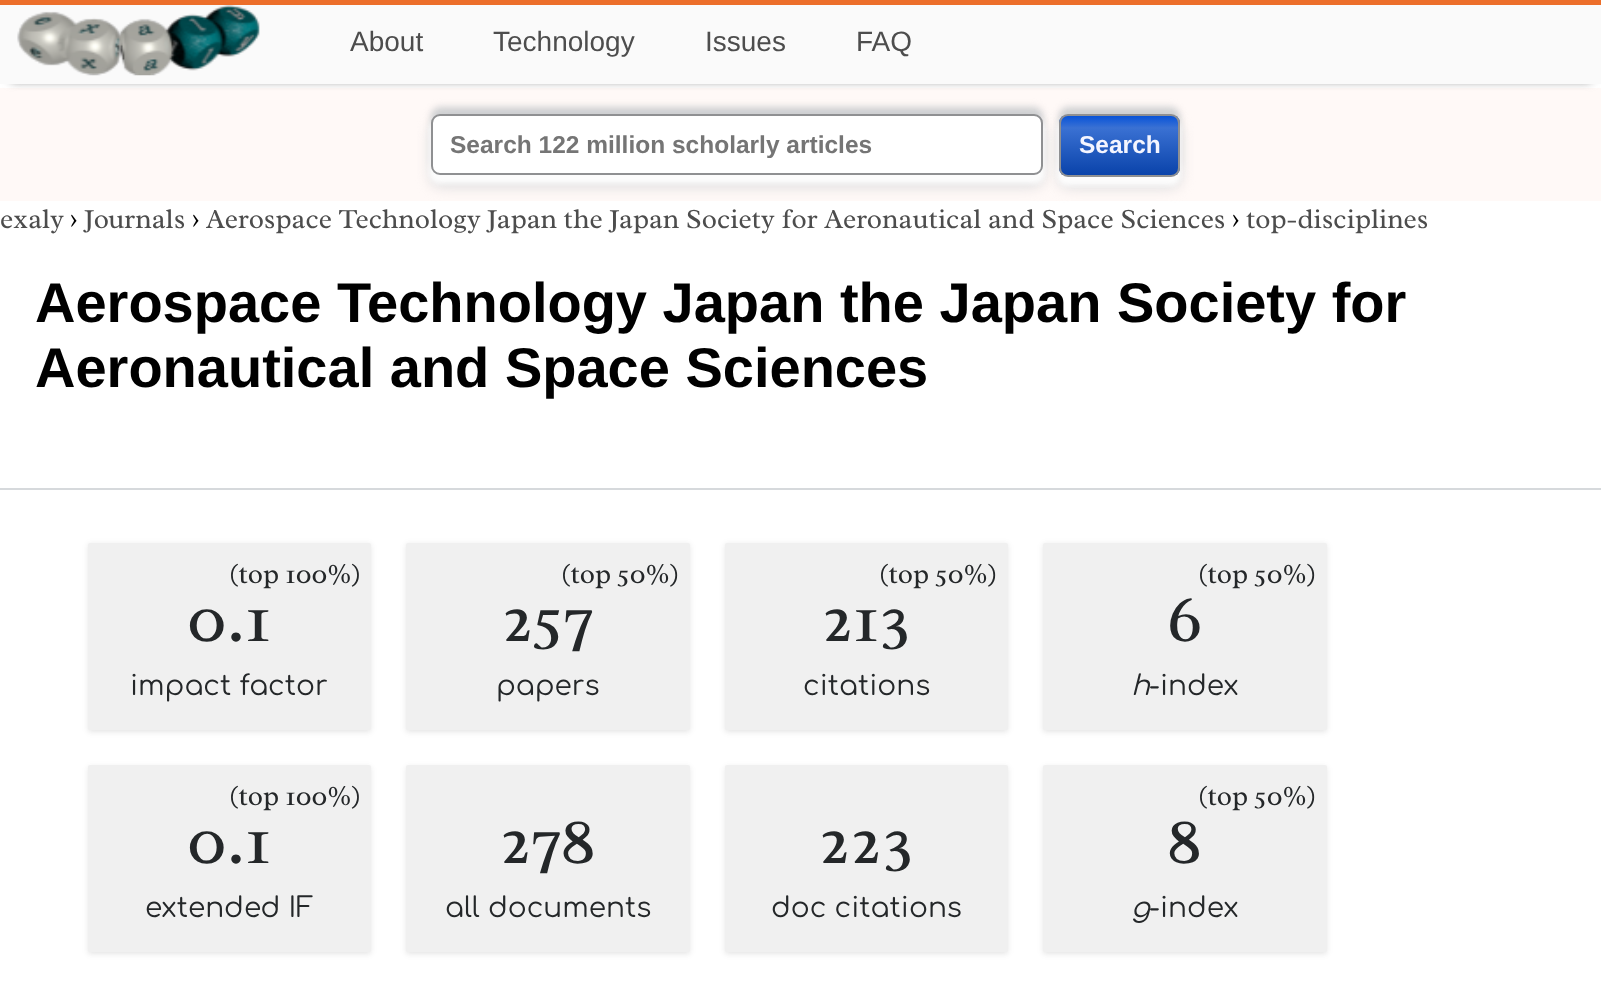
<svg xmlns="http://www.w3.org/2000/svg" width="1601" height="991">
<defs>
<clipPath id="clip1"><rect x="1059" y="114" width="121" height="63" rx="9"/></clipPath>
<linearGradient id="g1" gradientUnits="userSpaceOnUse" x1="1119" y1="175" x2="1119" y2="116"><stop offset="0" stop-color="#0a43aa"/><stop offset="0.8" stop-color="#3a71d3"/><stop offset="1" stop-color="#0853d8"/></linearGradient>
</defs>
<rect width="100%" height="100%" fill="#fff"/>
<rect y="88" width="1601" height="113" fill="#fff9f7"/>
<rect x="11" y="18" width="1580" height="63" fill="#777" filter="blur(5px)"/>
<rect y="5" width="1601" height="79" fill="#fafafa"/>
<rect width="1601" height="5" fill="#ec6e2a"/>
<image x="17" y="5" width="243" height="71" href="media/1.png"/>
<text x="350" y="51" style="font-family:Liberation Sans;font-size:28px;fill:#4d4d4d">About</text>
<text x="493" y="51" style="font-family:Liberation Sans;font-size:28px;fill:#4d4d4d">Technology</text>
<text x="705" y="51" style="font-family:Liberation Sans;font-size:28px;fill:#4d4d4d">Issues</text>
<text x="856" y="51" style="font-family:Liberation Sans;font-size:28px;fill:#4d4d4d">FAQ</text>
<rect x="431" y="107" width="612" height="61" rx="9" fill="#cecfd1" filter="blur(3.5px)"/>
<rect x="431" y="124" width="612" height="62" rx="9" fill="#d6d7d9" filter="blur(7px)"/>
<rect x="429" y="119" width="616" height="65" rx="11" fill="#fcfcfc" filter="blur(2.5px)"/>
<rect x="432" y="115" width="610" height="59" rx="8" fill="#fff" stroke="#8f9092" stroke-width="2"/>
<text x="450" y="153" style="font-family:Liberation Sans;font-size:24.5px;font-weight:bold;fill:#757575">Search 122 million scholarly articles</text>
<rect x="1059" y="107" width="121" height="63" rx="9" fill="#cecfd1" filter="blur(3.5px)"/>
<rect x="1059" y="124" width="121" height="63" rx="9" fill="#d6d7d9" filter="blur(7px)"/>
<rect x="1057" y="119" width="124" height="67" rx="11" fill="#fcfcfc" filter="blur(2.5px)"/>
<g clip-path="url(#clip1)">
<rect x="1059" y="116" width="121" height="59" fill="url(#g1)"/>
</g>
<rect x="1060" y="115" width="119" height="61" rx="8" fill="none" stroke="#8f9092" stroke-width="2"/>
<text x="1079" y="153" style="font-family:Liberation Sans;font-size:24.5px;font-weight:bold;fill:#f4f5ff">Search</text>
<text x="0" y="228" style="font-family:Radley;font-size:28px;fill:#4d4d4d">exaly</text>
<text x="70" y="228" style="font-family:Radley;font-size:28px;fill:#000">›</text>
<text x="84" y="228" style="font-family:Radley;font-size:28px;fill:#4d4d4d">Journals</text>
<text x="192" y="228" style="font-family:Radley;font-size:28px;fill:#000">›</text>
<text x="206" y="228" style="font-family:Radley;font-size:28px;fill:#4d4d4d">Aerospace Technology Japan the Japan Society for Aeronautical and Space Sciences</text>
<text x="1232" y="228" style="font-family:Radley;font-size:28px;fill:#000">›</text>
<text x="1246" y="228" style="font-family:Radley;font-size:28px;fill:#4d4d4d">top-disciplines</text>
<rect y="488" width="1601" height="2" fill="#d6d9dc"/>
<text x="35" y="322" style="font-family:Liberation Sans;font-size:56px;font-weight:bold;fill:#000">Aerospace Technology Japan the Japan Society for</text>
<text x="35" y="387" style="font-family:Liberation Sans;font-size:56px;font-weight:bold;fill:#000">Aeronautical and Space Sciences</text>
<rect x="88" y="544" width="283" height="188" rx="2" fill="#0000000d" filter="blur(3.5px)"/>
<rect x="88" y="544" width="283" height="188" rx="2" fill="#0000000d" filter="blur(2px)"/>
<rect x="88" y="543" width="283" height="187" rx="2" fill="#f0f0f0"/>
<text x="229" y="583" style="font-family:Radley;font-size:28px;fill:#242729">(top 100%)</text>
<text x="187" y="641" style="font-family:Radley;font-size:70px;fill:#242729">0.1</text>
<text x="130" y="695" style="font-family:Comfortaa;font-size:28px;fill:#242729">impact factor</text>
<rect x="406" y="544" width="284" height="188" rx="2" fill="#0000000d" filter="blur(3.5px)"/>
<rect x="406" y="544" width="284" height="188" rx="2" fill="#0000000d" filter="blur(2px)"/>
<rect x="406" y="543" width="284" height="187" rx="2" fill="#f0f0f0"/>
<text x="561" y="583" style="font-family:Radley;font-size:28px;fill:#242729">(top 50%)</text>
<text x="502" y="641" style="font-family:Radley;font-size:70px;fill:#242729">257</text>
<text x="496" y="695" style="font-family:Comfortaa;font-size:28px;fill:#242729">papers</text>
<rect x="725" y="544" width="283" height="188" rx="2" fill="#0000000d" filter="blur(3.5px)"/>
<rect x="725" y="544" width="283" height="188" rx="2" fill="#0000000d" filter="blur(2px)"/>
<rect x="725" y="543" width="283" height="187" rx="2" fill="#f0f0f0"/>
<text x="879" y="583" style="font-family:Radley;font-size:28px;fill:#242729">(top 50%)</text>
<text x="822" y="641" style="font-family:Radley;font-size:70px;fill:#242729">213</text>
<text x="803" y="695" style="font-family:Comfortaa;font-size:28px;fill:#242729">citations</text>
<rect x="1043" y="544" width="284" height="188" rx="2" fill="#0000000d" filter="blur(3.5px)"/>
<rect x="1043" y="544" width="284" height="188" rx="2" fill="#0000000d" filter="blur(2px)"/>
<rect x="1043" y="543" width="284" height="187" rx="2" fill="#f0f0f0"/>
<text x="1198" y="583" style="font-family:Radley;font-size:28px;fill:#242729">(top 50%)</text>
<text x="1167" y="641" style="font-family:Radley;font-size:70px;fill:#242729">6</text>
<text x="1131" y="695" style="font-family:Comfortaa;font-size:28px;font-style:italic;fill:#242729">h</text>
<text x="1149" y="695" style="font-family:Comfortaa;font-size:28px;fill:#242729">-index</text>
<rect x="88" y="767" width="283" height="187" rx="2" fill="#0000000d" filter="blur(3.5px)"/>
<rect x="88" y="767" width="283" height="187" rx="2" fill="#0000000d" filter="blur(2px)"/>
<rect x="88" y="765" width="283" height="187" rx="2" fill="#f0f0f0"/>
<text x="229" y="805" style="font-family:Radley;font-size:28px;fill:#242729">(top 100%)</text>
<text x="187" y="863" style="font-family:Radley;font-size:70px;fill:#242729">0.1</text>
<text x="145" y="917" style="font-family:Comfortaa;font-size:28px;fill:#242729">extended IF</text>
<rect x="406" y="767" width="284" height="187" rx="2" fill="#0000000d" filter="blur(3.5px)"/>
<rect x="406" y="767" width="284" height="187" rx="2" fill="#0000000d" filter="blur(2px)"/>
<rect x="406" y="765" width="284" height="187" rx="2" fill="#f0f0f0"/>
<text x="500" y="863" style="font-family:Radley;font-size:70px;fill:#242729">278</text>
<text x="445" y="917" style="font-family:Comfortaa;font-size:28px;fill:#242729">all documents</text>
<rect x="725" y="767" width="283" height="187" rx="2" fill="#0000000d" filter="blur(3.5px)"/>
<rect x="725" y="767" width="283" height="187" rx="2" fill="#0000000d" filter="blur(2px)"/>
<rect x="725" y="765" width="283" height="187" rx="2" fill="#f0f0f0"/>
<text x="819" y="863" style="font-family:Radley;font-size:70px;fill:#242729">223</text>
<text x="771" y="917" style="font-family:Comfortaa;font-size:28px;fill:#242729">doc citations</text>
<rect x="1043" y="767" width="284" height="187" rx="2" fill="#0000000d" filter="blur(3.5px)"/>
<rect x="1043" y="767" width="284" height="187" rx="2" fill="#0000000d" filter="blur(2px)"/>
<rect x="1043" y="765" width="284" height="187" rx="2" fill="#f0f0f0"/>
<text x="1198" y="805" style="font-family:Radley;font-size:28px;fill:#242729">(top 50%)</text>
<text x="1167" y="863" style="font-family:Radley;font-size:70px;fill:#242729">8</text>
<text x="1131" y="917" style="font-family:Comfortaa;font-size:28px;font-style:italic;fill:#242729">g</text>
<text x="1149" y="917" style="font-family:Comfortaa;font-size:28px;fill:#242729">-index</text>
</svg>
